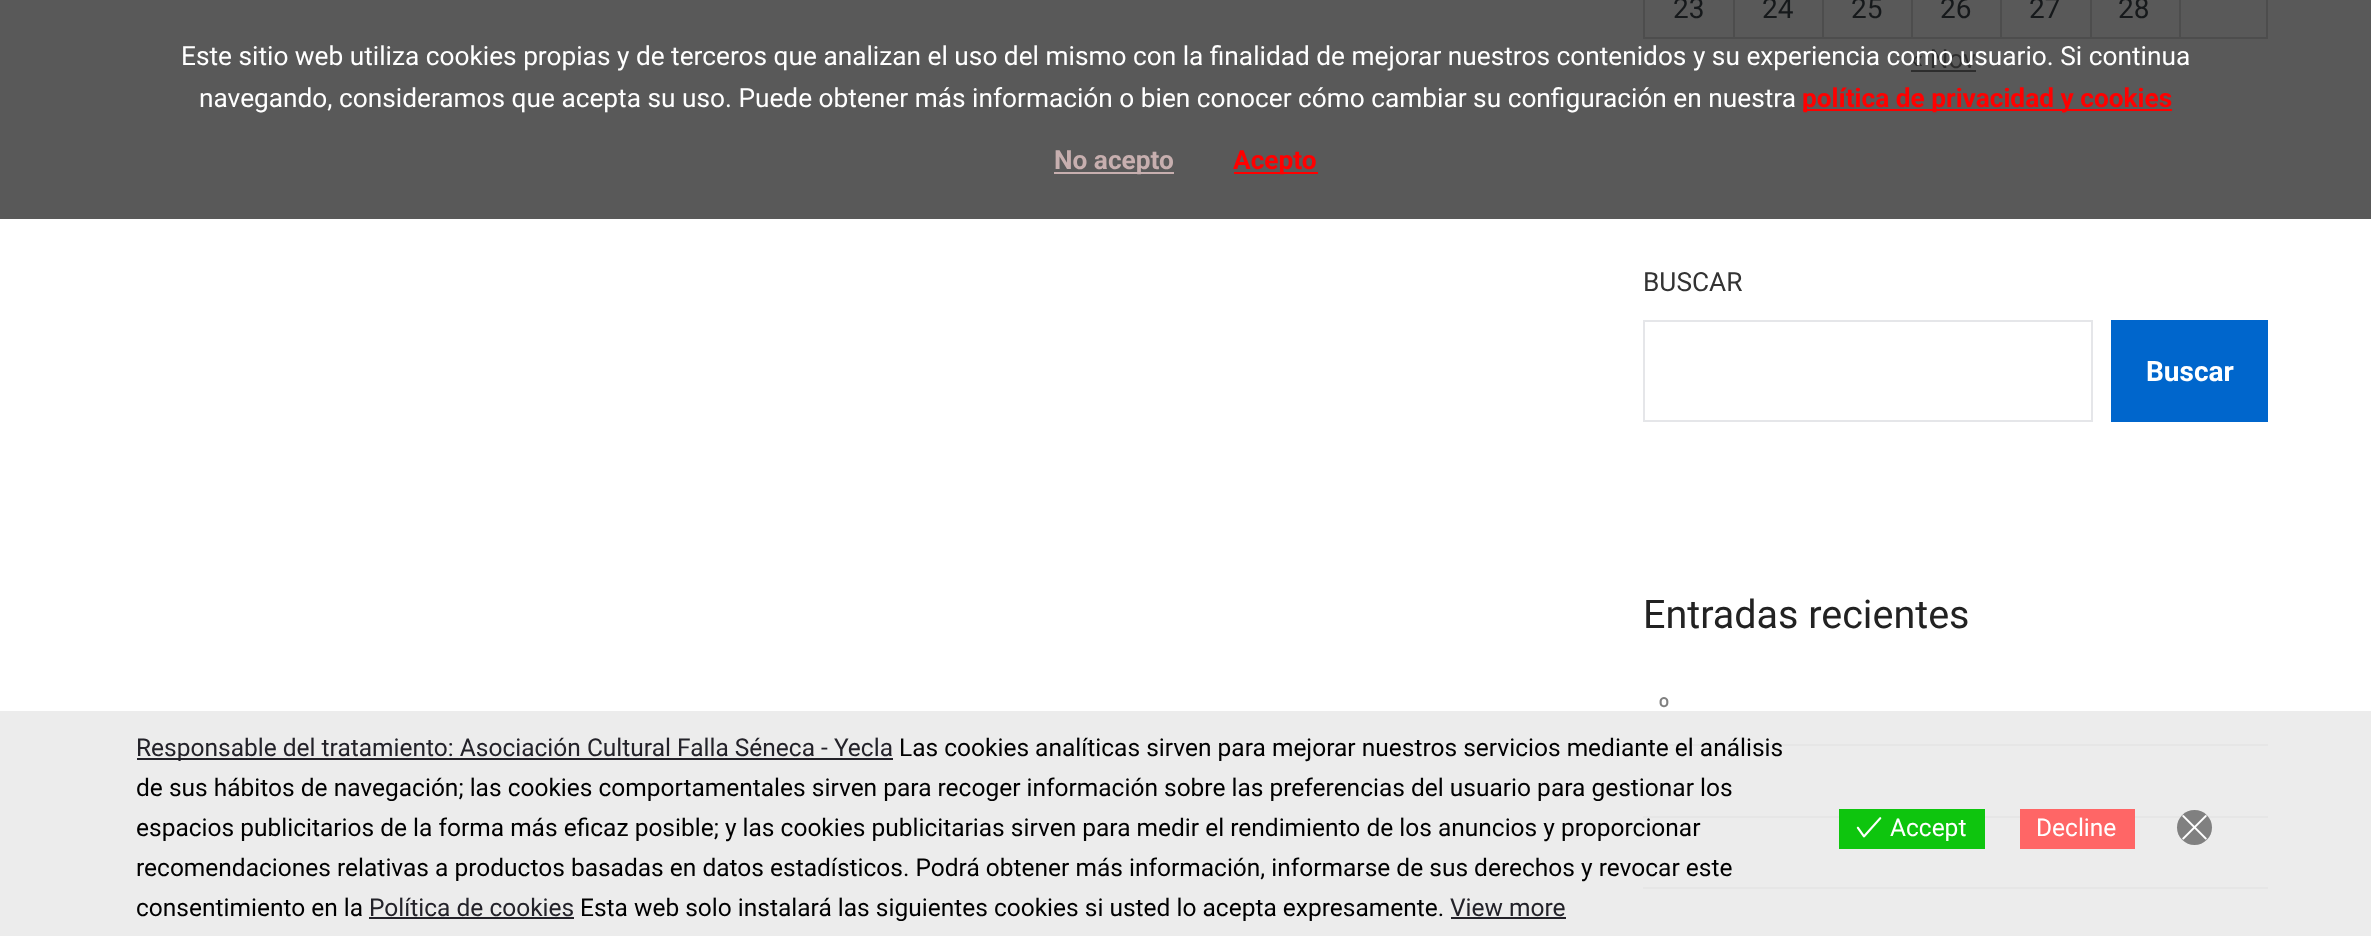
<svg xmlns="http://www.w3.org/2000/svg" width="2371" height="936">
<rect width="100%" height="100%" fill="#fff"/>
<rect width="2371" height="219" fill="#595959"/>
<rect x="2266" width="2" height="39" fill="#4d4d4d"/>
<rect x="2179" y="37" width="89" height="2" fill="#4d4d4d"/>
<rect x="2179" width="2" height="39" fill="#4d4d4d"/>
<rect x="2090" y="37" width="91" height="2" fill="#4d4d4d"/>
<rect x="2090" width="2" height="39" fill="#4d4d4d"/>
<rect x="2000" y="37" width="91" height="2" fill="#4d4d4d"/>
<rect x="2000" width="2" height="39" fill="#4d4d4d"/>
<rect x="1911" y="37" width="91" height="2" fill="#4d4d4d"/>
<rect x="1911" width="2" height="39" fill="#4d4d4d"/>
<rect x="1822" y="37" width="91" height="2" fill="#4d4d4d"/>
<rect x="1822" width="2" height="39" fill="#4d4d4d"/>
<rect x="1733" y="37" width="91" height="2" fill="#4d4d4d"/>
<rect x="1733" width="2" height="39" fill="#4d4d4d"/>
<rect x="1643" y="37" width="91" height="2" fill="#4d4d4d"/>
<rect x="1643" width="2" height="39" fill="#4d4d4d"/>
<text x="1673" y="18" style="font-family:Roboto;font-size:28px;fill:#16191b">23</text>
<text x="1762" y="18" style="font-family:Roboto;font-size:28px;fill:#16191b">24</text>
<text x="1851" y="18" style="font-family:Roboto;font-size:28px;fill:#16191b">25</text>
<text x="1940" y="18" style="font-family:Roboto;font-size:28px;fill:#16191b">26</text>
<text x="2029" y="18" style="font-family:Roboto;font-size:28px;fill:#16191b">27</text>
<text x="2118" y="18" style="font-family:Roboto;font-size:28px;fill:#16191b">28</text>
<text x="1911" y="68" style="font-family:Roboto;font-size:26.25px;fill:#2d2d2d">« Nov</text>
<rect x="1911" y="70" width="65" height="2" fill="#2d2d2d"/>
<text x="1643" y="291" style="font-family:Roboto;font-size:26.25px;fill:#333">BUSCAR</text>
<rect x="1644" y="321" width="448" height="100" fill="none" stroke="#e5e6e9" stroke-width="2"/>
<rect x="2111" y="320" width="157" height="102" fill="#06c"/>
<text x="2146" y="381" style="font-family:Roboto;font-size:28px;font-weight:bold;fill:#fff">Buscar</text>
<text x="1643" y="628" style="font-family:Roboto;font-size:39.5px;fill:#222">Entradas recientes</text>
<rect x="1643" y="744" width="625" height="2" fill="#ebebeb"/>
<text x="1658" y="716" style="font-family:Roboto;font-size:26.25px;fill:#808080">º</text>
<rect x="1643" y="816" width="625" height="2" fill="#ebebeb"/>
<rect x="1643" y="887" width="625" height="2" fill="#ebebeb"/>
<text x="181" y="65" style="font-family:Roboto;font-size:26.25px;fill:#fff">Este sitio web utiliza cookies propias y de terceros que analizan el uso del mismo con la finalidad de mejorar nuestros contenidos y su experiencia como usuario. Si continua</text>
<text x="199" y="107" style="font-family:Roboto;font-size:26.25px;fill:#fff">navegando, consideramos que acepta su uso. Puede obtener más información o bien conocer cómo cambiar su configuración en nuestra</text>
<rect x="1803" y="109" width="369" height="2" fill="#f00"/>
<text x="1802" y="107" style="font-family:Roboto;font-size:26.25px;font-weight:bold;fill:#f00">política de privacidad y cookies</text>
<rect x="1054" y="172" width="120" height="2" fill="#c7afaf"/>
<text x="1054" y="169" style="font-family:Roboto;font-size:26.25px;font-weight:bold;fill:#c7afaf">No acepto</text>
<rect x="1234" y="172" width="84" height="2" fill="#f00"/>
<text x="1233" y="169" style="font-family:Roboto;font-size:26.25px;font-weight:bold;fill:#f00">Acepto</text>
<rect y="711" width="2371" height="225" fill="#e4e4e4b3"/>
<rect x="137" y="758" width="756" height="2" fill="#232229"/>
<text x="136" y="756" style="font-family:Roboto;font-size:24.5px;fill:#232229">Responsable del tratamiento: Asociación Cultural Falla Séneca - Yecla</text>
<text x="899" y="756" style="font-family:Roboto;font-size:24.5px;fill:#000">Las cookies analíticas sirven para mejorar nuestros servicios mediante el análisis</text>
<text x="136" y="796" style="font-family:Roboto;font-size:24.5px;fill:#000">de sus hábitos de navegación; las cookies comportamentales sirven para recoger información sobre las preferencias del usuario para gestionar los</text>
<text x="136" y="836" style="font-family:Roboto;font-size:24.5px;fill:#000">espacios publicitarios de la forma más eficaz posible; y las cookies publicitarias sirven para medir el rendimiento de los anuncios y proporcionar</text>
<text x="136" y="876" style="font-family:Roboto;font-size:24.5px;fill:#000">recomendaciones relativas a productos basadas en datos estadísticos. Podrá obtener más información, informarse de sus derechos y revocar este</text>
<text x="136" y="916" style="font-family:Roboto;font-size:24.5px;fill:#000">consentimiento en la</text>
<text x="369" y="916" style="font-family:Roboto;font-size:24.5px;fill:#232229">Política de cookies</text>
<rect x="369" y="917" width="205" height="2" fill="#232229"/>
<text x="580" y="916" style="font-family:Roboto;font-size:24.5px;fill:#000">Esta web solo instalará las siguientes cookies si usted lo acepta expresamente.</text>
<text x="1450" y="916" style="font-family:Roboto;font-size:24.5px;fill:#232229">View more</text>
<rect x="1451" y="917" width="115" height="2" fill="#232229"/>
<rect x="1839" y="809" width="146" height="40" fill="#0ec50e"/>
<image x="1856" y="817" width="26" height="21" href="media/1.png"/>
<text x="1890" y="836" style="font-family:Roboto;font-size:24.5px;fill:#fff">Accept</text>
<rect x="2020" y="809" width="115" height="40" fill="#f66"/>
<text x="2036" y="836" style="font-family:Roboto;font-size:24.5px;fill:#fff">Decline</text>
<circle cx="2194.5" cy="827.5" r="17.5" fill="#808080"/>
<image x="2182" y="815" width="25" height="25" href="media/2.png"/>
</svg>
